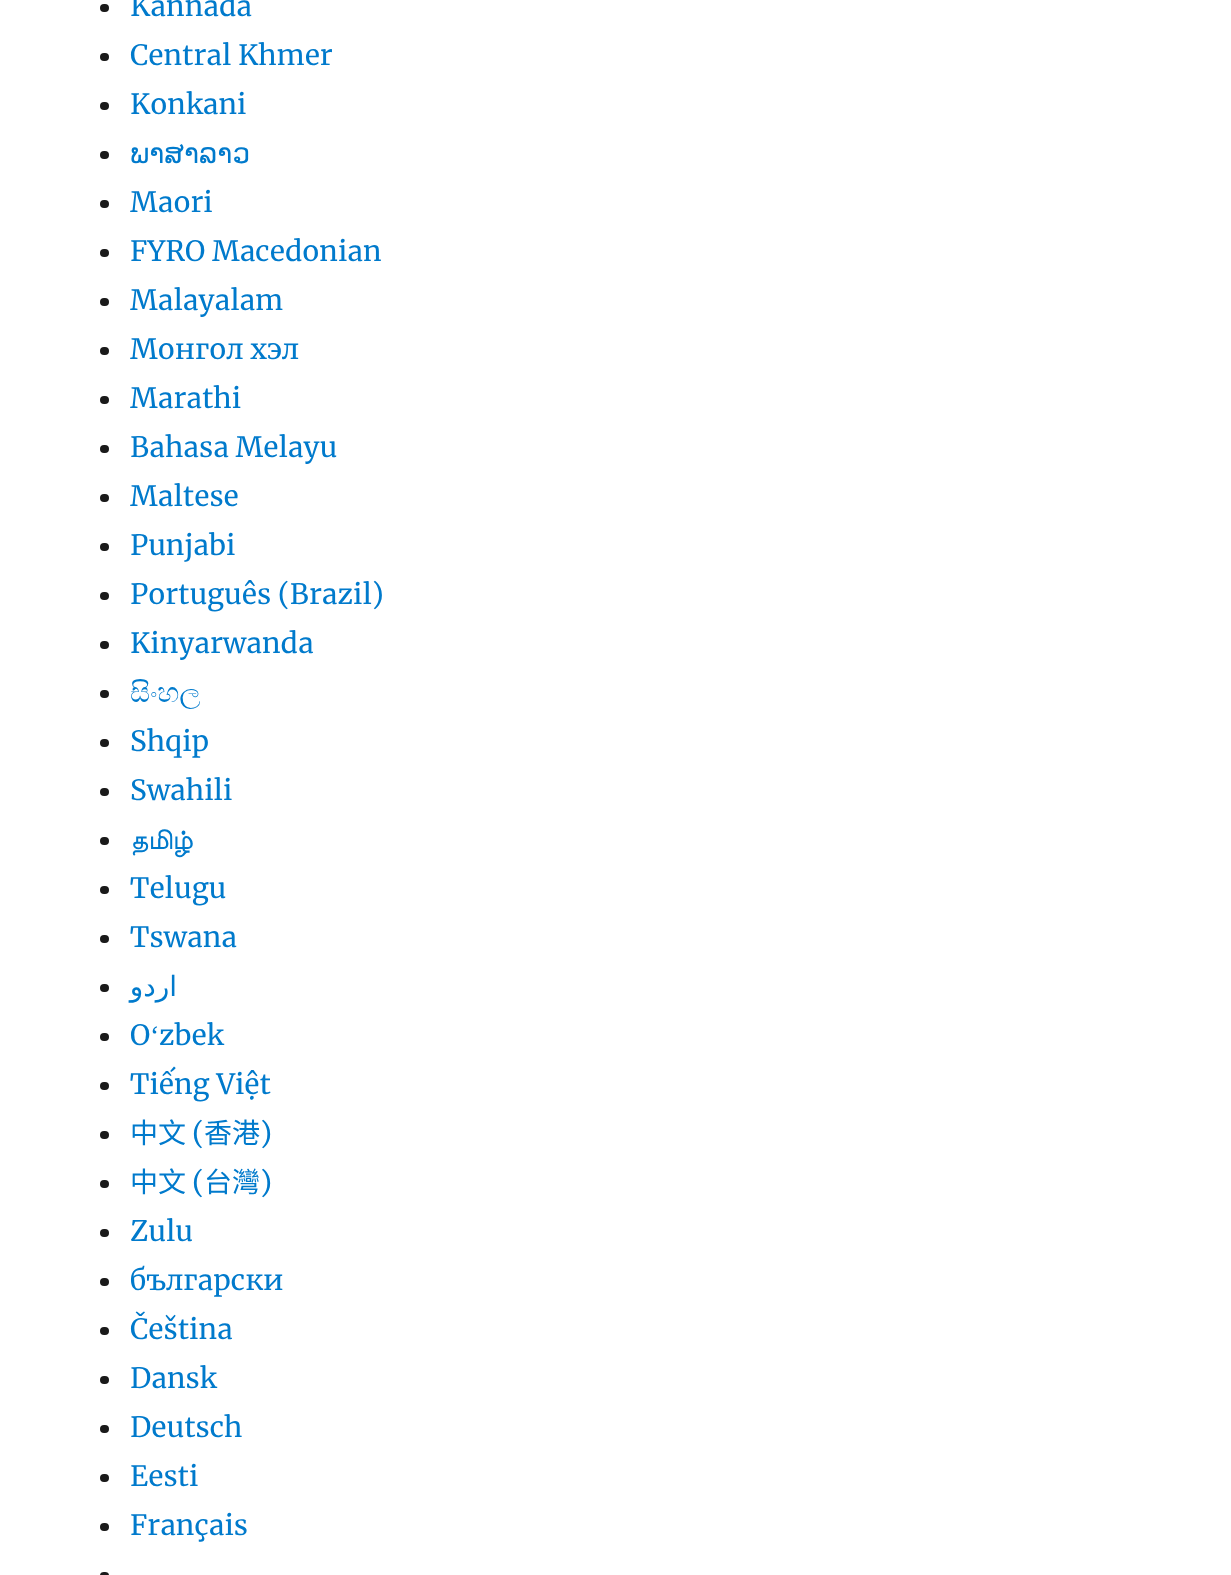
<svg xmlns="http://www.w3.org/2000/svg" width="1231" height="1575">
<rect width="100%" height="100%" fill="#fff"/>
<rect x="100" y="4" width="9" height="8" rx="4" fill="#1a1a1a"/>
<text x="130" y="16" style="font-family:Merriweather;font-size:28px;fill:#007acc">Kannada</text>
<rect x="100" y="53" width="9" height="8" rx="4" fill="#1a1a1a"/>
<text x="130" y="65" style="font-family:Merriweather;font-size:28px;fill:#007acc">Central Khmer</text>
<rect x="100" y="102" width="9" height="8" rx="4" fill="#1a1a1a"/>
<text x="130" y="114" style="font-family:Merriweather;font-size:28px;fill:#007acc">Konkani</text>
<rect x="100" y="151" width="9" height="8" rx="4" fill="#1a1a1a"/>
<text x="130" y="163" style="font-family:DejaVu Sans;font-size:28px;fill:#007acc">ພາສາລາວ</text>
<rect x="100" y="200" width="9" height="8" rx="4" fill="#1a1a1a"/>
<text x="130" y="212" style="font-family:Merriweather;font-size:28px;fill:#007acc">Maori</text>
<rect x="100" y="249" width="9" height="8" rx="4" fill="#1a1a1a"/>
<text x="130" y="261" style="font-family:Merriweather;font-size:28px;fill:#007acc">FYRO Macedonian</text>
<rect x="100" y="298" width="9" height="8" rx="4" fill="#1a1a1a"/>
<text x="130" y="310" style="font-family:Merriweather;font-size:28px;fill:#007acc">Malayalam</text>
<rect x="100" y="347" width="9" height="8" rx="4" fill="#1a1a1a"/>
<text x="130" y="359" style="font-family:Merriweather;font-size:28px;fill:#007acc">Монгол хэл</text>
<rect x="100" y="396" width="9" height="8" rx="4" fill="#1a1a1a"/>
<text x="130" y="408" style="font-family:Merriweather;font-size:28px;fill:#007acc">Marathi</text>
<rect x="100" y="445" width="9" height="8" rx="4" fill="#1a1a1a"/>
<text x="130" y="457" style="font-family:Merriweather;font-size:28px;fill:#007acc">Bahasa Melayu</text>
<rect x="100" y="494" width="9" height="8" rx="4" fill="#1a1a1a"/>
<text x="130" y="506" style="font-family:Merriweather;font-size:28px;fill:#007acc">Maltese</text>
<rect x="100" y="543" width="9" height="8" rx="4" fill="#1a1a1a"/>
<text x="130" y="555" style="font-family:Merriweather;font-size:28px;fill:#007acc">Punjabi</text>
<rect x="100" y="592" width="9" height="8" rx="4" fill="#1a1a1a"/>
<text x="130" y="604" style="font-family:Merriweather;font-size:28px;fill:#007acc">Português (Brazil)</text>
<rect x="100" y="641" width="9" height="8" rx="4" fill="#1a1a1a"/>
<text x="130" y="653" style="font-family:Merriweather;font-size:28px;fill:#007acc">Kinyarwanda</text>
<rect x="100" y="690" width="9" height="8" rx="4" fill="#1a1a1a"/>
<text x="130" y="702" style="font-family:FreeSerif;font-size:28px;fill:#007acc">සිංහල</text>
<rect x="100" y="739" width="9" height="8" rx="4" fill="#1a1a1a"/>
<text x="130" y="751" style="font-family:Merriweather;font-size:28px;fill:#007acc">Shqip</text>
<rect x="100" y="788" width="9" height="8" rx="4" fill="#1a1a1a"/>
<text x="130" y="800" style="font-family:Merriweather;font-size:28px;fill:#007acc">Swahili</text>
<rect x="100" y="837" width="9" height="8" rx="4" fill="#1a1a1a"/>
<text x="130" y="849" style="font-family:FreeSans;font-size:28px;fill:#007acc">தமிழ்</text>
<rect x="100" y="886" width="9" height="8" rx="4" fill="#1a1a1a"/>
<text x="130" y="898" style="font-family:Merriweather;font-size:28px;fill:#007acc">Telugu</text>
<rect x="100" y="935" width="9" height="8" rx="4" fill="#1a1a1a"/>
<text x="130" y="947" style="font-family:Merriweather;font-size:28px;fill:#007acc">Tswana</text>
<rect x="100" y="984" width="9" height="8" rx="4" fill="#1a1a1a"/>
<text x="177" y="996" style="font-family:DejaVu Sans;font-size:28px;direction:rtl;fill:#007acc">اردو</text>
<text x="130" y="1045" style="font-family:Merriweather;font-size:28px;fill:#007acc">O</text>
<text x="150" y="1045" style="font-family:Liberation Serif;font-size:28px;fill:#007acc">ʻ</text>
<text x="159" y="1045" style="font-family:Merriweather;font-size:28px;fill:#007acc">zbek</text>
<rect x="100" y="1033" width="9" height="8" rx="4" fill="#1a1a1a"/>
<rect x="100" y="1082" width="9" height="8" rx="4" fill="#1a1a1a"/>
<text x="130" y="1094" style="font-family:Merriweather;font-size:28px;fill:#007acc">Tiếng Việt</text>
<rect x="100" y="1131" width="9" height="8" rx="4" fill="#1a1a1a"/>
<text x="130" y="1143" style="font-family:Noto Sans CJK HK;font-size:28px;fill:#007acc">中文</text>
<text x="192" y="1143" style="font-family:Merriweather;font-size:28px;fill:#007acc">(</text>
<text x="204" y="1143" style="font-family:Noto Sans CJK HK;font-size:28px;fill:#007acc">香港</text>
<text x="260" y="1143" style="font-family:Merriweather;font-size:28px;fill:#007acc">)</text>
<rect x="100" y="1180" width="9" height="8" rx="4" fill="#1a1a1a"/>
<text x="130" y="1192" style="font-family:Noto Sans CJK HK;font-size:28px;fill:#007acc">中文</text>
<text x="192" y="1192" style="font-family:Merriweather;font-size:28px;fill:#007acc">(</text>
<text x="204" y="1192" style="font-family:Noto Sans CJK HK;font-size:28px;fill:#007acc">台灣</text>
<text x="260" y="1192" style="font-family:Merriweather;font-size:28px;fill:#007acc">)</text>
<rect x="100" y="1229" width="9" height="8" rx="4" fill="#1a1a1a"/>
<text x="130" y="1241" style="font-family:Merriweather;font-size:28px;fill:#007acc">Zulu</text>
<rect x="100" y="1278" width="9" height="8" rx="4" fill="#1a1a1a"/>
<text x="130" y="1290" style="font-family:Merriweather;font-size:28px;fill:#007acc">български</text>
<rect x="100" y="1327" width="9" height="8" rx="4" fill="#1a1a1a"/>
<text x="130" y="1339" style="font-family:Merriweather;font-size:28px;fill:#007acc">Čeština</text>
<rect x="100" y="1376" width="9" height="8" rx="4" fill="#1a1a1a"/>
<text x="130" y="1388" style="font-family:Merriweather;font-size:28px;fill:#007acc">Dansk</text>
<rect x="100" y="1425" width="9" height="8" rx="4" fill="#1a1a1a"/>
<text x="130" y="1437" style="font-family:Merriweather;font-size:28px;fill:#007acc">Deutsch</text>
<rect x="100" y="1474" width="9" height="8" rx="4" fill="#1a1a1a"/>
<text x="130" y="1486" style="font-family:Merriweather;font-size:28px;fill:#007acc">Eesti</text>
<rect x="100" y="1523" width="9" height="8" rx="4" fill="#1a1a1a"/>
<text x="130" y="1535" style="font-family:Merriweather;font-size:28px;fill:#007acc">Français</text>
<rect x="100" y="1572" width="9" height="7" rx="4" fill="#1a1a1a"/>
</svg>
